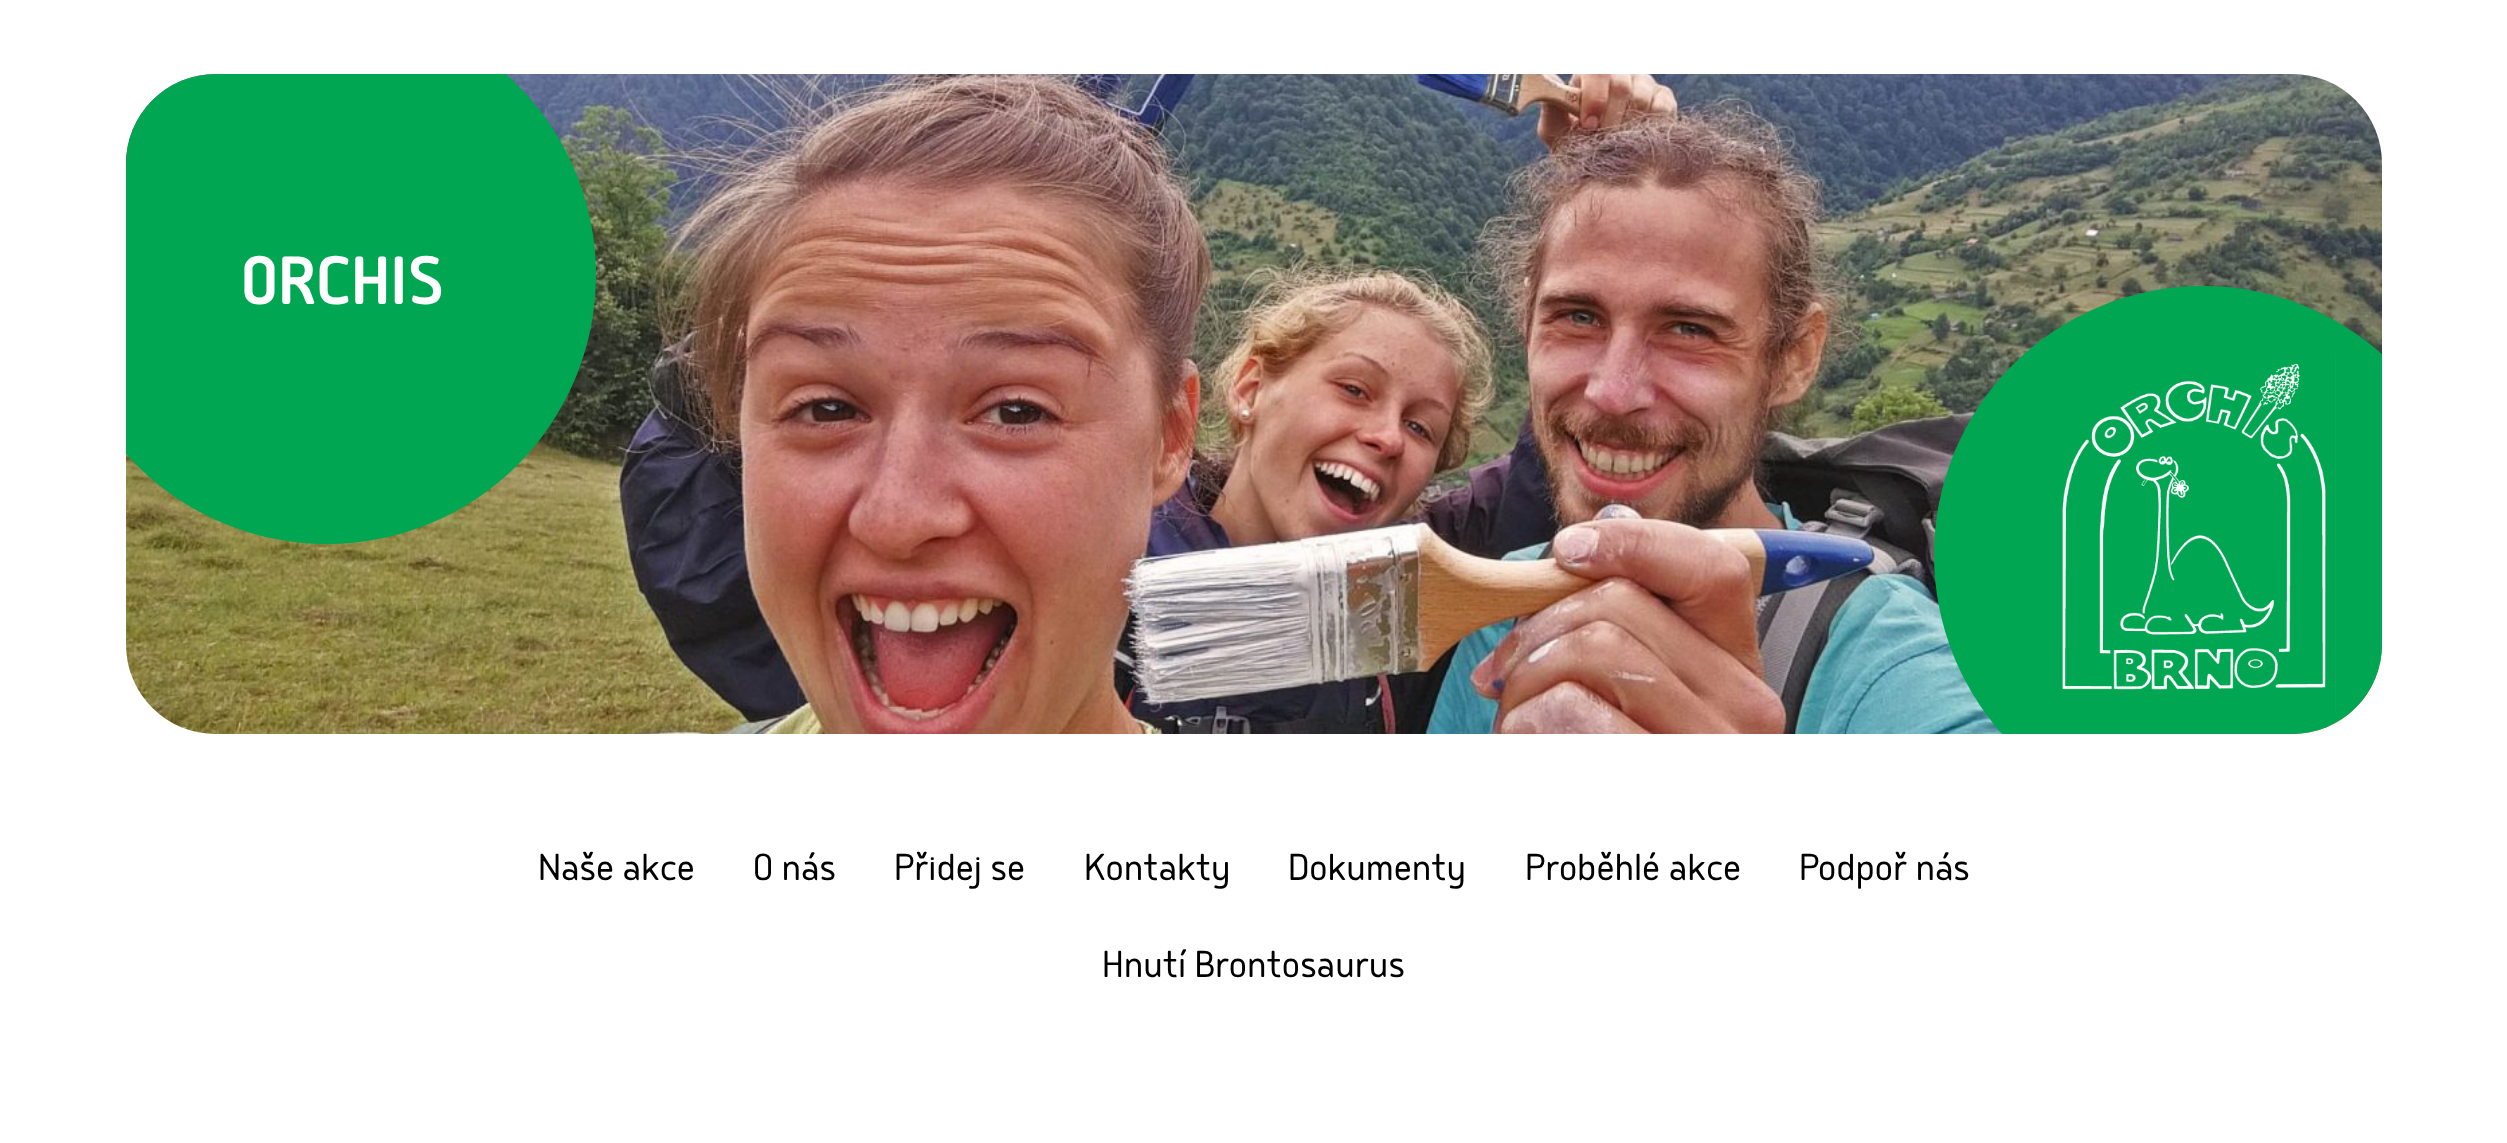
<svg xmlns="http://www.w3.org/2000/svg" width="2507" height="1143">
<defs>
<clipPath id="clip1"><rect x="126" y="74" width="2256" height="660" rx="90"/></clipPath>
</defs>
<rect width="100%" height="100%" fill="#fff"/>
<image x="126" y="74" width="2256" height="660" href="media/1.png"/>
<g clip-path="url(#clip1)">
<circle cx="327" cy="275" r="269" fill="#00a651"/>
</g>
<text x="241" y="304" style="font-family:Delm;font-size:81px;fill:#fff">ORCHIS</text>
<g clip-path="url(#clip1)">
<circle cx="2203" cy="555" r="269" fill="#00a651"/>
</g>
<image x="2062" y="354" width="274" height="360" href="media/2.png"/>
<text x="538" y="880" style="font-family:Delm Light;font-size:44.75px;font-weight:300;fill:#000">Naše akce</text>
<text x="753" y="880" style="font-family:Delm Light;font-size:44.75px;font-weight:300;fill:#000">O nás</text>
<text x="894" y="880" style="font-family:Delm Light;font-size:44.75px;font-weight:300;fill:#000">Přidej se</text>
<text x="1084" y="880" style="font-family:Delm Light;font-size:44.75px;font-weight:300;fill:#000">Kontakty</text>
<text x="1288" y="880" style="font-family:Delm Light;font-size:44.75px;font-weight:300;fill:#000">Dokumenty</text>
<text x="1525" y="880" style="font-family:Delm Light;font-size:44.75px;font-weight:300;fill:#000">Proběhlé akce</text>
<text x="1799" y="880" style="font-family:Delm Light;font-size:44.75px;font-weight:300;fill:#000">Podpoř nás</text>
<text x="1102" y="977" style="font-family:Delm Light;font-size:44.75px;font-weight:300;fill:#000">Hnutí Brontosaurus</text>
</svg>
